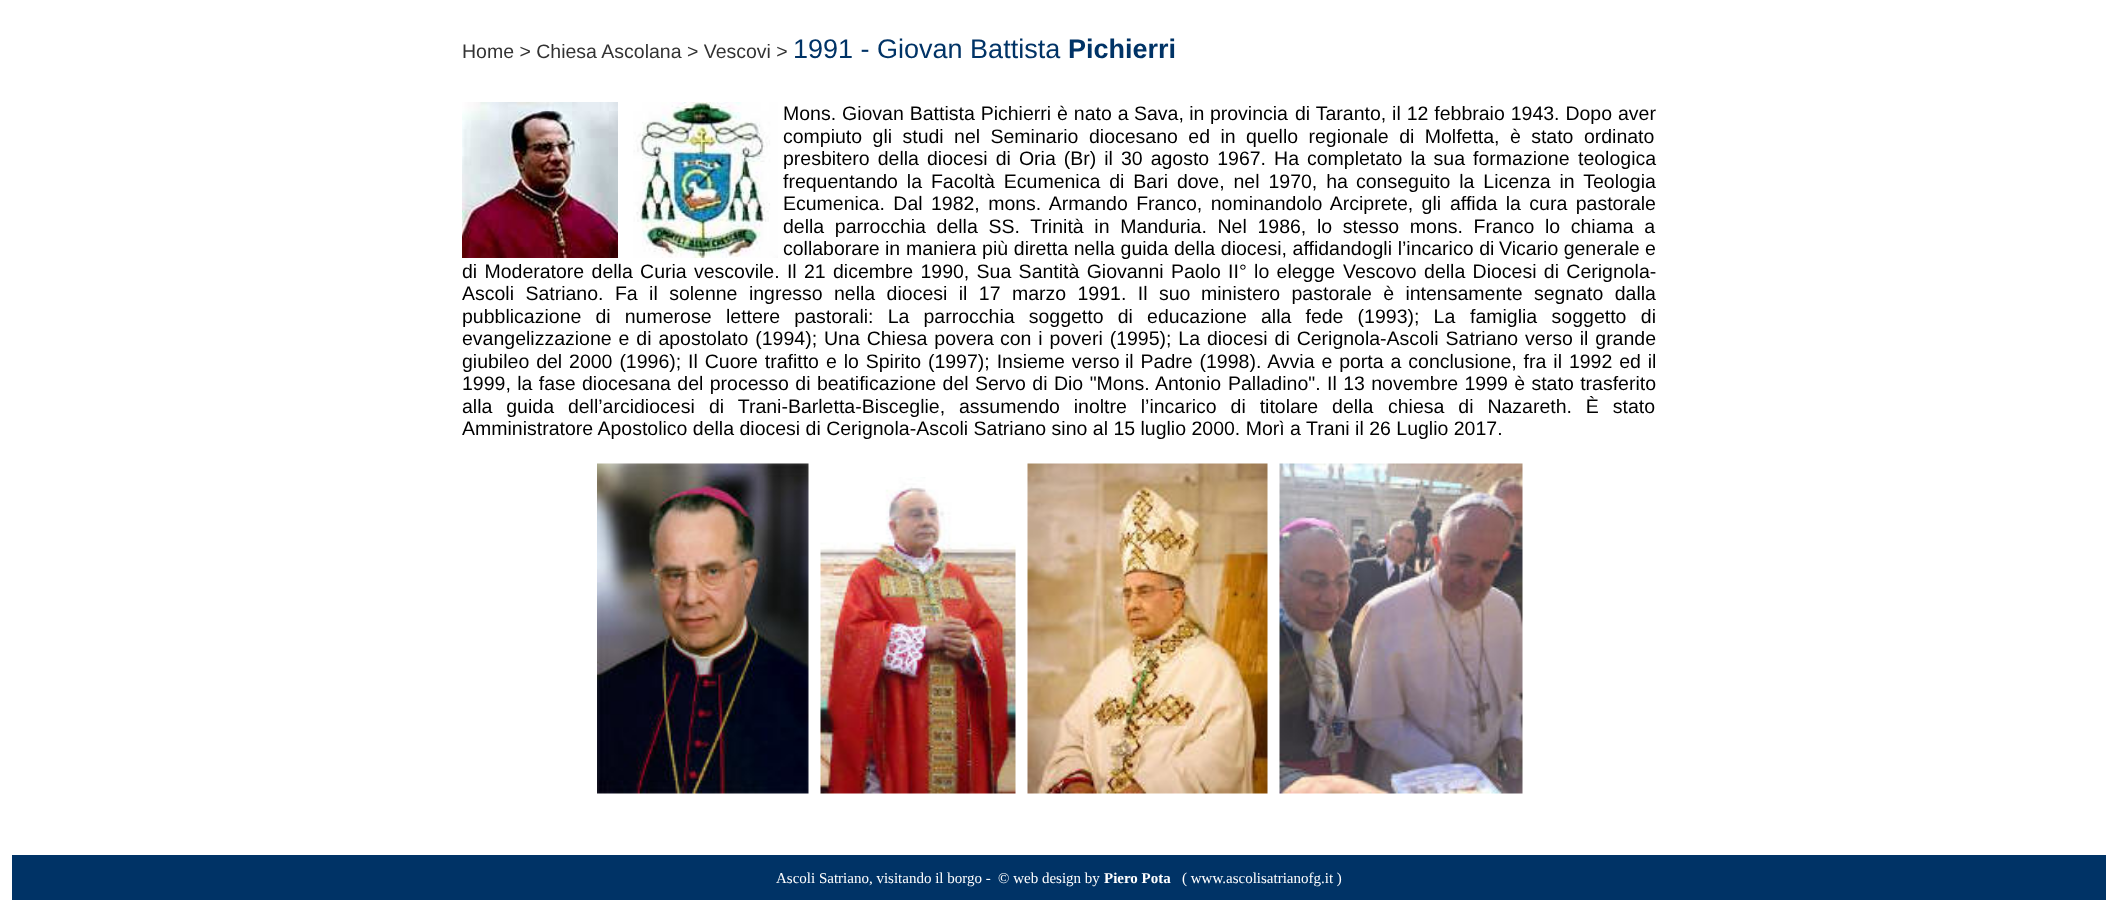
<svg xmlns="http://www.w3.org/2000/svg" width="2117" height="920">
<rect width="100%" height="100%" fill="#fff"/>
<text x="462" y="58" style="font-family:Liberation Sans;font-size:19.5px;fill:#333">Home &gt; Chiesa Ascolana &gt; Vescovi &gt;</text>
<text x="793" y="58" style="font-family:Liberation Sans;font-size:27px;fill:#036">1991 - Giovan Battista</text>
<text x="1068" y="58" style="font-family:Liberation Sans;font-size:27px;font-weight:bold;fill:#036">Pichierri</text>
<image x="462" y="102" width="156" height="156" href="media/1.png"/>
<image x="633" y="102" width="145" height="156" href="media/2.png"/>
<text x="783" y="120" word-spacing="0.5" style="font-family:Liberation Sans;font-size:19.5px;fill:#000">Mons. Giovan Battista Pichierri è nato a</text>
<text x="1134" y="120" style="font-family:Liberation Sans;font-size:19.5px;fill:#000">Sava, in provincia</text>
<text x="1295" y="120" word-spacing="0.5" style="font-family:Liberation Sans;font-size:19.5px;fill:#000">di Taranto, il 12 febbraio 1943. Dopo aver</text>
<text x="783" y="143" word-spacing="5" style="font-family:Liberation Sans;font-size:19.5px;fill:#000">compiuto gli studi nel Seminario</text>
<text x="1089" y="143" word-spacing="5" style="font-family:Liberation Sans;font-size:19.5px;fill:#000">diocesano ed in quello regionale di Molfetta, è stato ordinato</text>
<text x="783" y="165" word-spacing="2.6" style="font-family:Liberation Sans;font-size:19.5px;fill:#000">presbitero della</text>
<text x="927" y="165" word-spacing="2.6" style="font-family:Liberation Sans;font-size:19.5px;fill:#000">diocesi di Oria (Br) il 30 agosto 1967. Ha completato la sua formazione</text>
<text x="1578" y="165" style="font-family:Liberation Sans;font-size:19.5px;fill:#000">teologica</text>
<text x="783" y="188" word-spacing="3.5" style="font-family:Liberation Sans;font-size:19.5px;fill:#000">frequentando la Facoltà Ecumenica di Bari dove, nel 1970, ha</text>
<text x="1356" y="188" word-spacing="3.5" style="font-family:Liberation Sans;font-size:19.5px;fill:#000">conseguito la Licenza in Teologia</text>
<text x="783" y="210" word-spacing="3" style="font-family:Liberation Sans;font-size:19.5px;fill:#000">Ecumenica. Dal 1982, mons. Armando Franco, nominandolo Arciprete, gli</text>
<text x="1450" y="210" word-spacing="3" style="font-family:Liberation Sans;font-size:19.5px;fill:#000">affida la cura pastorale</text>
<text x="783" y="233" word-spacing="5.25" style="font-family:Liberation Sans;font-size:19.5px;fill:#000">della parrocchia della SS. Trinità in Manduria. Nel 1986, lo stesso mons. Franco lo chiama a</text>
<text x="783" y="255" style="font-family:Liberation Sans;font-size:19.5px;fill:#000">collaborare in</text>
<text x="906" y="255" word-spacing="0.25" style="font-family:Liberation Sans;font-size:19.5px;fill:#000">maniera più diretta nella guida della diocesi, affidandogli l’incarico di</text>
<text x="1499" y="255" style="font-family:Liberation Sans;font-size:19.5px;fill:#000">Vicario generale e</text>
<text x="462" y="278" word-spacing="1.9" style="font-family:Liberation Sans;font-size:19.5px;fill:#000">di Moderatore della Curia vescovile. Il 21 dicembre 1990, Sua Santità Giovanni Paolo II° lo elegge</text>
<text x="1343" y="278" word-spacing="1.9" style="font-family:Liberation Sans;font-size:19.5px;fill:#000">Vescovo della Diocesi di Cerignola-</text>
<text x="462" y="300" word-spacing="6" style="font-family:Liberation Sans;font-size:19.5px;fill:#000">Ascoli Satriano. Fa il solenne ingresso nella diocesi il 17 marzo 1991. Il suo</text>
<text x="1201" y="300" word-spacing="6" style="font-family:Liberation Sans;font-size:19.5px;fill:#000">ministero pastorale è intensamente segnato dalla</text>
<text x="462" y="323" word-spacing="8.75" style="font-family:Liberation Sans;font-size:19.5px;fill:#000">pubblicazione di numerose</text>
<text x="726" y="323" word-spacing="8.75" style="font-family:Liberation Sans;font-size:19.5px;fill:#000">lettere pastorali: La parrocchia soggetto di educazione alla fede (1993); La</text>
<text x="1470" y="323" word-spacing="9" style="font-family:Liberation Sans;font-size:19.5px;fill:#000">famiglia soggetto di</text>
<text x="462" y="345" word-spacing="1.5" style="font-family:Liberation Sans;font-size:19.5px;fill:#000">evangelizzazione e di apostolato (1994); Una Chiesa povera</text>
<text x="1000" y="345" word-spacing="1.5" style="font-family:Liberation Sans;font-size:19.5px;fill:#000">con i poveri (1995); La diocesi di Cerignola-Ascoli Satriano verso il grande</text>
<text x="462" y="368" word-spacing="1.5" style="font-family:Liberation Sans;font-size:19.5px;fill:#000">giubileo del 2000 (1996); Il Cuore trafitto e lo Spirito (1997); Insieme verso</text>
<text x="1125" y="368" word-spacing="1.5" style="font-family:Liberation Sans;font-size:19.5px;fill:#000">il Padre (1998). Avvia e porta a conclusione, fra il 1992 ed il</text>
<text x="462" y="390" word-spacing="1" style="font-family:Liberation Sans;font-size:19.5px;fill:#000">1999, la fase</text>
<text x="582" y="390" word-spacing="1" style="font-family:Liberation Sans;font-size:19.5px;fill:#000">diocesana del processo di beatificazione del Servo di Dio "Mons. Antonio</text>
<text x="1228" y="390" word-spacing="1" style="font-family:Liberation Sans;font-size:19.5px;fill:#000">Palladino". Il 13 novembre 1999 è stato trasferito</text>
<text x="462" y="413" word-spacing="8.5" style="font-family:Liberation Sans;font-size:19.5px;fill:#000">alla guida dell’arcidiocesi</text>
<text x="709" y="413" word-spacing="8.5" style="font-family:Liberation Sans;font-size:19.5px;fill:#000">di Trani-Barletta-Bisceglie, assumendo inoltre l’incarico di titolare della</text>
<text x="1388" y="413" word-spacing="8.5" style="font-family:Liberation Sans;font-size:19.5px;fill:#000">chiesa di Nazareth. È stato</text>
<text x="462" y="435" style="font-family:Liberation Sans;font-size:19.5px;fill:#000">Amministratore Apostolico della diocesi di Cerignola-Ascoli Satriano sino al 15 luglio 2000. Morì a Trani il 26 Luglio 2017.</text>
<image x="597" y="463" width="212" height="331" href="media/3.png"/>
<image x="820" y="477" width="196" height="317" href="media/4.png"/>
<image x="1027" y="463" width="241" height="331" href="media/5.png"/>
<image x="1279" y="463" width="244" height="331" href="media/6.png"/>
<rect x="12" y="855" width="2094" height="45" fill="#036"/>
<text x="776" y="883" style="font-family:Liberation Serif;font-size:15px;fill:#fff">Ascoli Satriano, visitando il borgo -</text>
<text x="998" y="883" style="font-family:Liberation Serif;font-size:15px;fill:#fff">© web design by</text>
<text x="1104" y="883" style="font-family:Liberation Serif;font-size:15px;font-weight:bold;fill:#fff">Piero Pota</text>
<text x="1182" y="883" style="font-family:Liberation Serif;font-size:15px;fill:#fff">( www.ascolisatrianofg.it )</text>
</svg>
